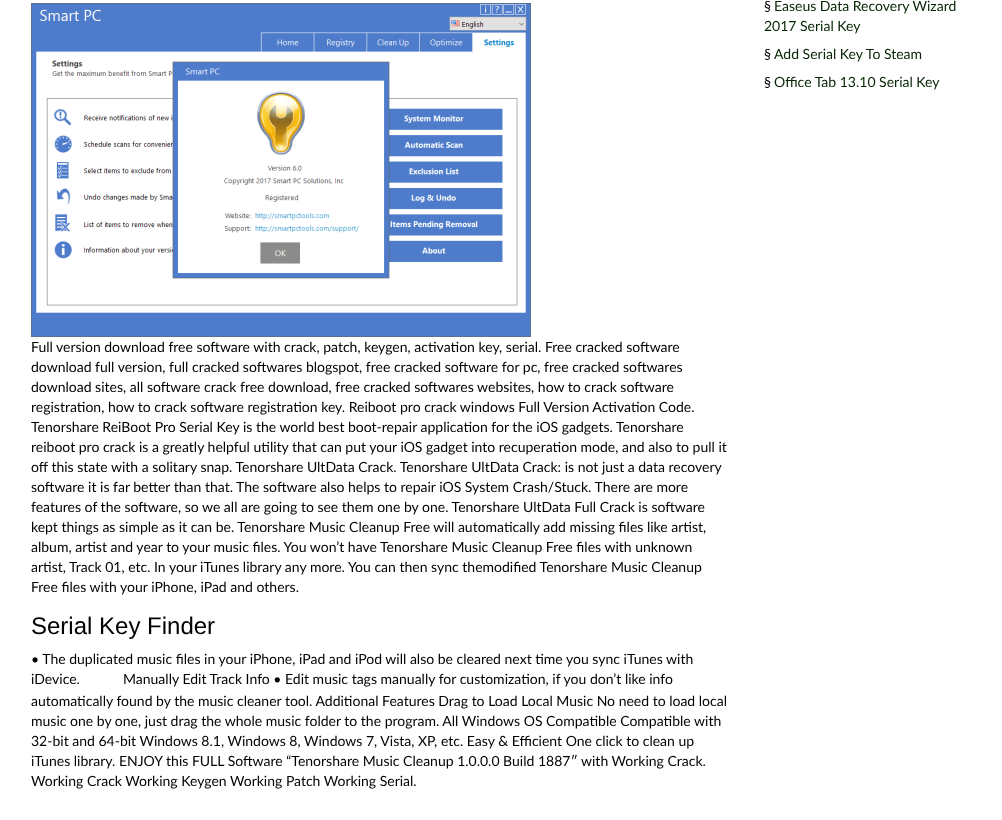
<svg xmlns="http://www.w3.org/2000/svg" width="1002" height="820">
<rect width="100%" height="100%" fill="#fff"/>
<text x="764" y="11" style="font-family:Lato;font-size:14px;fill:#000">§</text>
<text x="774" y="11" style="font-family:Lato;font-size:14px;fill:#052403">Easeus Data Recovery Wizard</text>
<text x="764" y="31" style="font-family:Lato;font-size:14px;fill:#052403">2017 Serial Key</text>
<text x="764" y="59" style="font-family:Lato;font-size:14px;fill:#000">§</text>
<text x="774" y="59" style="font-family:Lato;font-size:14px;fill:#052403">Add Serial Key To Steam</text>
<text x="764" y="87" style="font-family:Lato;font-size:14px;fill:#000">§</text>
<text x="774" y="87" style="font-family:Lato;font-size:14px;fill:#052403">Office Tab 13.10 Serial Key</text>
<image x="31" y="3" width="500" height="334" href="media/1.png"/>
<text x="31" y="352" style="font-family:Lato;font-size:14px;fill:#000">Full version download free software with crack, patch, keygen, activation key, serial. Free cracked software</text>
<text x="31" y="372" style="font-family:Lato;font-size:14px;fill:#000">download full version, full cracked softwares blogspot, free cracked software for pc, free cracked softwares</text>
<text x="31" y="392" style="font-family:Lato;font-size:14px;fill:#000">download sites, all software crack free download, free cracked softwares websites, how to crack software</text>
<text x="31" y="412" style="font-family:Lato;font-size:14px;fill:#000">registration, how to crack software registration key. Reiboot pro crack windows Full Version Activation Code.</text>
<text x="31" y="432" style="font-family:Lato;font-size:14px;fill:#000">Tenorshare ReiBoot Pro Serial Key is the world best boot-repair application for the iOS gadgets. Tenorshare</text>
<text x="31" y="452" style="font-family:Lato;font-size:14px;fill:#000">reiboot pro crack is a greatly helpful utility that can put your iOS gadget into recuperation mode, and also to pull it</text>
<text x="31" y="472" style="font-family:Lato;font-size:14px;fill:#000">off this state with a solitary snap. Tenorshare UltData Crack. Tenorshare UltData Crack: is not just a data recovery</text>
<text x="31" y="492" style="font-family:Lato;font-size:14px;fill:#000">software it is far better than that. The software also helps to repair iOS System Crash/Stuck. There are more</text>
<text x="31" y="512" style="font-family:Lato;font-size:14px;fill:#000">features of the software, so we all are going to see them one by one. Tenorshare UltData Full Crack is software</text>
<text x="31" y="532" style="font-family:Lato;font-size:14px;fill:#000">kept things as simple as it can be. Tenorshare Music Cleanup Free will automatically add missing files like artist,</text>
<text x="31" y="552" style="font-family:Lato;font-size:14px;fill:#000">album, artist and year to your music files. You won’t have Tenorshare Music Cleanup Free files with unknown</text>
<text x="31" y="572" style="font-family:Lato;font-size:14px;fill:#000">artist, Track 01, etc. In your iTunes library any more. You can then sync themodified Tenorshare Music Cleanup</text>
<text x="31" y="592" style="font-family:Lato;font-size:14px;fill:#000">Free files with your iPhone, iPad and others.</text>
<text x="31" y="634" style="font-family:Liberation Sans;font-size:24px;fill:#000">Serial Key Finder</text>
<text x="31" y="664" style="font-family:Lato;font-size:14px;fill:#000">• The duplicated music files in your iPhone, iPad and iPod will also be cleared next time you sync iTunes with</text>
<text x="31" y="684" style="font-family:Lato;font-size:14px;fill:#000">iDevice.</text>
<text x="123" y="684" style="font-family:Lato;font-size:14px;fill:#000">Manually Edit Track Info • Edit music tags manually for customization, if you don’t like info</text>
<text x="31" y="706" style="font-family:Lato;font-size:14px;fill:#000">automatically found by the music cleaner tool. Additional Features Drag to Load Local Music No need to load local</text>
<text x="31" y="726" style="font-family:Lato;font-size:14px;fill:#000">music one by one, just drag the whole music folder to the program. All Windows OS Compatible Compatible with</text>
<text x="31" y="746" style="font-family:Lato;font-size:14px;fill:#000">32-bit and 64-bit Windows 8.1, Windows 8, Windows 7, Vista, XP, etc. Easy &amp; Efficient One click to clean up</text>
<text x="31" y="766" style="font-family:Lato;font-size:14px;fill:#000">iTunes library. ENJOY this FULL Software “Tenorshare Music Cleanup 1.0.0.0 Build 1887″ with Working Crack.</text>
<text x="31" y="786" style="font-family:Lato;font-size:14px;fill:#000">Working Crack Working Keygen Working Patch Working Serial.</text>
</svg>
